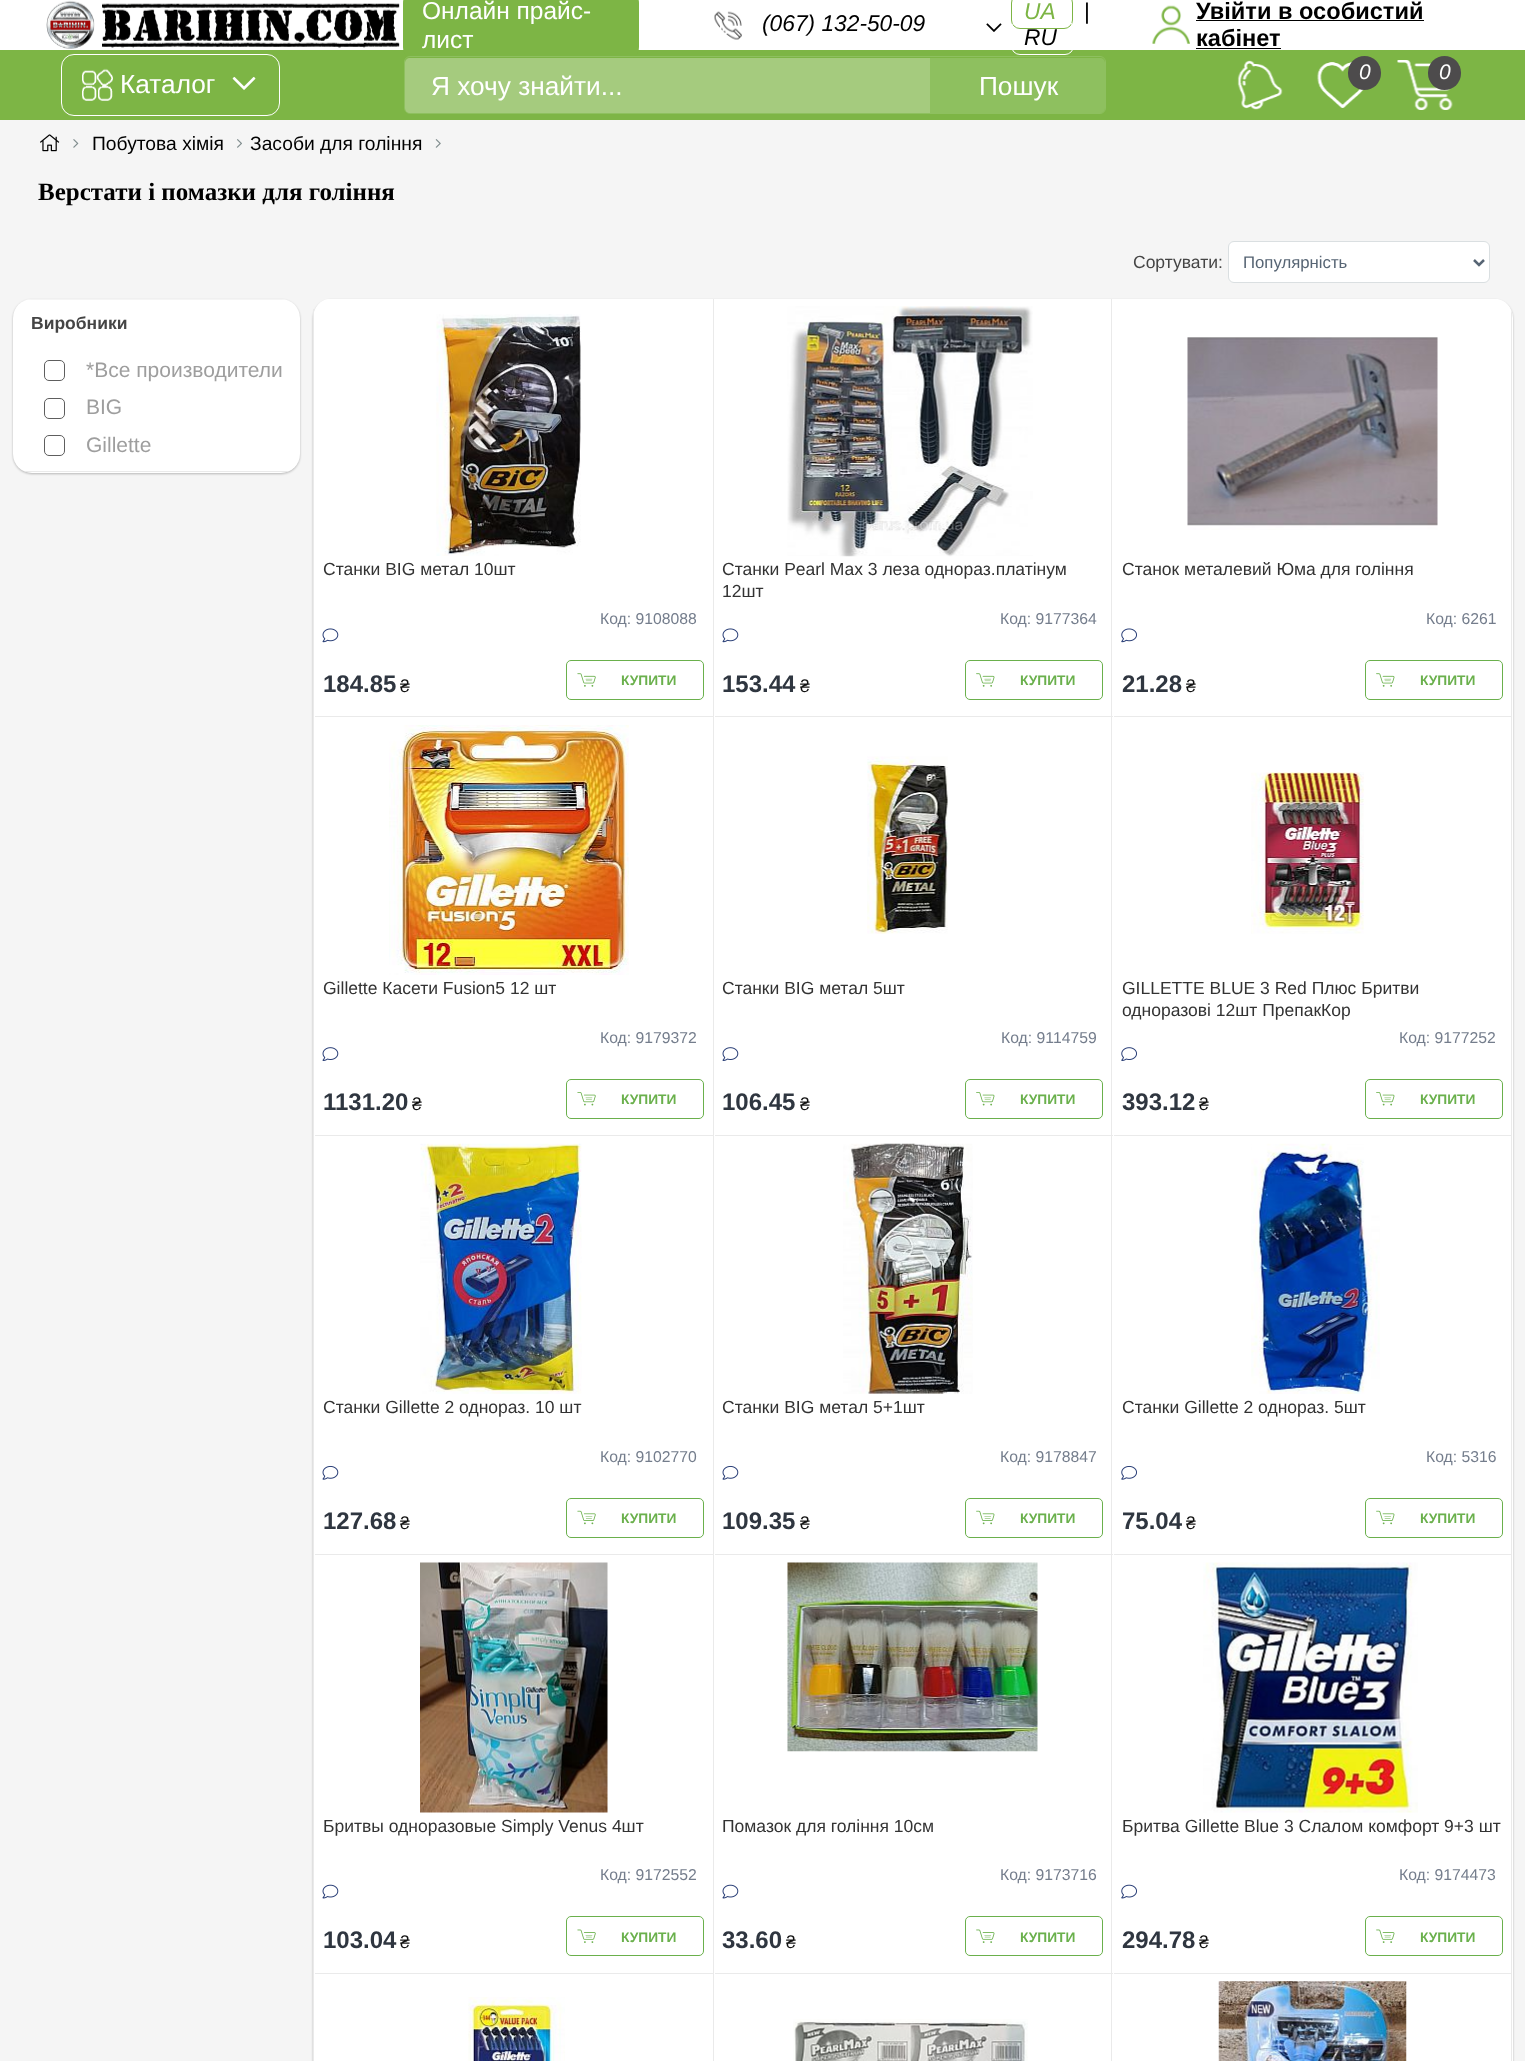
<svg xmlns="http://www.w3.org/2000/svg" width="1525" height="2061">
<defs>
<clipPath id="clip1"><rect x="13" y="299" width="287" height="174" rx="19"/></clipPath>
</defs>
<rect width="100%" height="100%" fill="#f5f5f5"/>
<rect width="1525" height="50" fill="#fff"/>
<image x="46" y="0" width="354" height="49" href="media/1.png"/>
<rect y="50" width="1525" height="70" fill="#7db545"/>
<rect x="403" y="-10" width="236" height="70" rx="13" fill="#7db545"/>
<text x="422" y="19" style="font-family:Liberation Sans;font-size:24.5px;fill:#fff">Онлайн прайс-</text>
<text x="422" y="48" style="font-family:Liberation Sans;font-size:24.5px;fill:#fff">лист</text>
<image x="714" y="11" width="28" height="29" href="media/2.png"/>
<text x="762" y="31" style="font-family:Liberation Sans;font-size:22.75px;font-style:italic;fill:#000">(067) 132-50-09</text>
<image x="986" y="23" width="16" height="9" href="media/3.png"/>
<rect x="1011.5" y="-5.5" width="61" height="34" rx="8.5" fill="none" stroke="#7db545"/>
<text x="1024" y="19" style="font-family:Liberation Sans;font-size:22.75px;font-style:italic;fill:#7db545">UA</text>
<text x="1084" y="19" style="font-family:Liberation Sans;font-size:22.75px;fill:#000">|</text>
<rect x="1011.5" y="20.5" width="62" height="34" rx="8.5" fill="none" stroke="#fff"/>
<text x="1024" y="45" style="font-family:Liberation Sans;font-size:22.75px;font-style:italic;fill:#000">RU</text>
<image x="1152" y="5" width="38" height="39" href="media/4.png"/>
<text x="1196" y="19" style="font-family:Liberation Sans;font-size:23.6px;font-weight:bold;fill:#000">Увійти в особистий</text>
<rect x="1196" y="20" width="228" height="1" fill="#000"/>
<text x="1196" y="46" style="font-family:Liberation Sans;font-size:23.6px;font-weight:bold;fill:#000">кабінет</text>
<rect x="1196" y="48" width="85" height="1" fill="#000"/>
<image x="1237" y="60" width="46" height="50" href="media/5.png"/>
<image x="1317" y="62" width="47" height="46" href="media/6.png"/>
<rect x="1348" y="56" width="33" height="34" rx="16.5" fill="#4d4b4c"/>
<text x="1359" y="79" style="font-family:Liberation Sans;font-size:21px;font-style:italic;fill:#fff">0</text>
<image x="1397" y="60" width="63" height="50" href="media/7.png"/>
<rect x="1428" y="56" width="33" height="34" rx="16.5" fill="#4d4b4c"/>
<text x="1439" y="79" style="font-family:Liberation Sans;font-size:21px;font-style:italic;fill:#fff">0</text>
<rect x="61.5" y="54.5" width="218" height="61" rx="12.5" fill="none" stroke="#fff"/>
<image x="82" y="68" width="31" height="33" href="media/8.png"/>
<text x="120" y="93" style="font-family:Liberation Sans;font-size:26.25px;fill:#fff">Каталог</text>
<image x="232" y="76" width="24" height="14" href="media/9.png"/>
<rect x="404.5" y="56.5" width="701" height="57" rx="5.5" fill="none" stroke="#8ec05f"/>
<path d="M410 58h520v55h-520c-3 0-5-2-5-5v-45c0-3 2-5 5-5z" fill="#a5cb7e"/>
<text x="431" y="95" style="font-family:Liberation Sans;font-size:26.25px;fill:#fff">Я хочу знайти...</text>
<path d="M930 58h170c3 0 5 2 5 5v45c0 3-2 5-5 5h-170z" fill="#8ec05f"/>
<text x="979" y="95" style="font-family:Liberation Sans;font-size:26.25px;fill:#fff">Пошук</text>
<image x="40" y="134" width="20" height="18" href="media/10.png"/>
<image x="73" y="139" width="6" height="9" href="media/11.png"/>
<text x="92" y="150" style="font-family:Liberation Sans;font-size:19.25px;fill:#000">Побутова хімія</text>
<image x="237" y="139" width="5" height="9" href="media/12.png"/>
<text x="250" y="150" style="font-family:Liberation Sans;font-size:19.25px;fill:#000">Засоби для гоління</text>
<image x="435" y="139" width="6" height="9" href="media/13.png"/>
<text x="38" y="200" style="font-family:Liberation Serif;font-size:25px;font-weight:bold;fill:#000">Верстати і помазки для гоління</text>
<text x="1133" y="268" style="font-family:Liberation Sans;font-size:17.5px;fill:#454545">Сортувати:</text>
<rect x="1228.5" y="241.5" width="261" height="41" rx="5.5" fill="#fff" stroke="#dadfe1"/>
<path d="M1474 260l5 5l5-5" fill="none" stroke="#576574" stroke-width="2.5"/>
<text x="1243" y="268" style="font-family:Liberation Sans;font-size:16.75px;fill:#576574">Популярність</text>
<rect x="13" y="300" width="287" height="174" rx="19" fill="#00000040" filter="blur(1px)"/>
<rect x="13" y="299" width="287" height="174" rx="19" fill="#fff"/>
<g clip-path="url(#clip1)">
<rect x="25" y="299" width="263" height="1" fill="#f5f5f5"/>
</g>
<text x="31" y="329" style="font-family:Liberation Sans;font-size:17.5px;font-weight:bold;fill:#454545">Виробники</text>
<rect x="25" y="471" width="263" height="1" fill="#eaeaea"/>
<rect x="44.5" y="360.5" width="20" height="20" rx="4.5" fill="none" stroke="#5e5e5e"/>
<text x="86" y="377" style="font-family:Liberation Sans;font-size:21px;fill:#9e9e9e">*Все производители</text>
<rect x="44.5" y="398.5" width="20" height="20" rx="4.5" fill="none" stroke="#5e5e5e"/>
<text x="86" y="414" style="font-family:Liberation Sans;font-size:21px;fill:#9e9e9e">BIG</text>
<rect x="44.5" y="435.5" width="20" height="20" rx="4.5" fill="none" stroke="#5e5e5e"/>
<text x="86" y="452" style="font-family:Liberation Sans;font-size:21px;fill:#9e9e9e">Gillette</text>
<rect x="313" y="300" width="1200" height="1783" rx="19" fill="#00000040" filter="blur(1px)"/>
<rect x="313" y="299" width="1200" height="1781" rx="19" fill="#fff"/>
<rect x="313" y="309" width="1" height="1752" fill="#eaeaea"/>
<path d="M314 314c1-8 7-14 14-15h386v419h-400z" fill="#fff"/>
<rect x="713" y="299" width="1" height="1762" fill="#eaeaea"/>
<rect x="314" y="716" width="400" height="1" fill="#eaeaea"/>
<path d="M314 314l1-3v407h-1z" fill="#fff"/>
<image x="436" y="314" width="145" height="242" href="media/14.png"/>
<text x="323" y="575" style="font-family:Liberation Sans;font-size:17.5px;fill:#333">Станки BIG метал 10шт</text>
<text x="600" y="624" style="font-family:Liberation Sans;font-size:15.75px;fill:#747d8c">Код: 9108088</text>
<image x="322" y="628" width="17" height="15" href="media/15.png"/>
<text x="323" y="692" style="font-family:Liberation Sans;font-size:24px;font-weight:bold;fill:#2f3640">184.85</text>
<text x="400" y="692" style="font-family:Liberation Sans;font-size:17.5px;fill:#111">₴</text>
<rect x="566.5" y="660.5" width="137" height="39" rx="4.5" fill="none" stroke="#6ab04c"/>
<image x="577" y="673" width="19" height="14" href="media/16.png"/>
<text x="621" y="685" style="font-family:Liberation Sans;font-size:13.75px;font-weight:bold;fill:#6ab04c">КУПИТИ</text>
<rect x="1111" y="299" width="1" height="1762" fill="#eaeaea"/>
<rect x="714" y="716" width="399" height="1" fill="#eaeaea"/>
<rect x="714" y="716" width="1" height="2" fill="#fff"/>
<image x="787" y="306" width="246" height="251" href="media/17.png"/>
<text x="722" y="575" style="font-family:Liberation Sans;font-size:17.5px;fill:#333">Станки Pearl Max 3 леза однораз.платінум</text>
<text x="722" y="597" style="font-family:Liberation Sans;font-size:17.5px;fill:#333">12шт</text>
<text x="1000" y="624" style="font-family:Liberation Sans;font-size:15.75px;fill:#747d8c">Код: 9177364</text>
<image x="722" y="628" width="17" height="15" href="media/15.png"/>
<text x="722" y="692" style="font-family:Liberation Sans;font-size:24px;font-weight:bold;fill:#2f3640">153.44</text>
<text x="800" y="692" style="font-family:Liberation Sans;font-size:17.5px;fill:#111">₴</text>
<rect x="965.5" y="660.5" width="137" height="39" rx="4.5" fill="none" stroke="#6ab04c"/>
<image x="976" y="673" width="19" height="14" href="media/18.png"/>
<text x="1020" y="685" style="font-family:Liberation Sans;font-size:13.75px;font-weight:bold;fill:#6ab04c">КУПИТИ</text>
<path d="M1113 299h384c9 1 15 9 15 19v400h-399z" fill="#fff"/>
<path d="M1511 310l1 3v405h-1z" fill="#eaeaea"/>
<rect x="1113" y="716" width="399" height="1" fill="#eaeaea"/>
<rect x="1113" y="716" width="1" height="2" fill="#fff"/>
<image x="1187" y="337" width="251" height="193" href="media/19.png"/>
<text x="1122" y="575" style="font-family:Liberation Sans;font-size:17.5px;fill:#333">Станок металевий Юма для гоління</text>
<text x="1426" y="624" style="font-family:Liberation Sans;font-size:15.75px;fill:#747d8c">Код: 6261</text>
<image x="1121" y="628" width="16" height="15" href="media/20.png"/>
<text x="1122" y="692" style="font-family:Liberation Sans;font-size:24px;font-weight:bold;fill:#2f3640">21.28</text>
<text x="1186" y="692" style="font-family:Liberation Sans;font-size:17.5px;fill:#111">₴</text>
<rect x="1365.5" y="660.5" width="137" height="39" rx="4.5" fill="none" stroke="#6ab04c"/>
<image x="1376" y="673" width="19" height="14" href="media/18.png"/>
<text x="1420" y="685" style="font-family:Liberation Sans;font-size:13.75px;font-weight:bold;fill:#6ab04c">КУПИТИ</text>
<rect x="314" y="1135" width="799" height="1" fill="#eaeaea"/>
<rect x="314" y="1135" width="1" height="1" fill="#fff"/>
<image x="389" y="725" width="240" height="250" href="media/21.png"/>
<text x="323" y="994" style="font-family:Liberation Sans;font-size:17.5px;fill:#333">Gillette Касети Fusion5 12 шт</text>
<text x="600" y="1043" style="font-family:Liberation Sans;font-size:15.75px;fill:#747d8c">Код: 9179372</text>
<image x="322" y="1047" width="17" height="14" href="media/22.png"/>
<text x="323" y="1110" style="font-family:Liberation Sans;font-size:24px;font-weight:bold;fill:#2f3640">1131.20</text>
<text x="412" y="1110" style="font-family:Liberation Sans;font-size:17.5px;fill:#111">₴</text>
<rect x="566.5" y="1079.5" width="137" height="39" rx="4.5" fill="none" stroke="#6ab04c"/>
<image x="577" y="1092" width="19" height="14" href="media/23.png"/>
<text x="621" y="1104" style="font-family:Liberation Sans;font-size:13.75px;font-weight:bold;fill:#6ab04c">КУПИТИ</text>
<rect x="714" y="1135" width="1" height="1" fill="#fff"/>
<image x="867" y="756" width="81" height="178" href="media/24.png"/>
<text x="722" y="994" style="font-family:Liberation Sans;font-size:17.5px;fill:#333">Станки BIG метал 5шт</text>
<text x="1001" y="1043" style="font-family:Liberation Sans;font-size:15.75px;fill:#747d8c">Код: 9114759</text>
<image x="722" y="1047" width="17" height="14" href="media/22.png"/>
<text x="722" y="1110" style="font-family:Liberation Sans;font-size:24px;font-weight:bold;fill:#2f3640">106.45</text>
<text x="800" y="1110" style="font-family:Liberation Sans;font-size:17.5px;fill:#111">₴</text>
<rect x="965.5" y="1079.5" width="137" height="39" rx="4.5" fill="none" stroke="#6ab04c"/>
<image x="976" y="1092" width="19" height="14" href="media/25.png"/>
<text x="1020" y="1104" style="font-family:Liberation Sans;font-size:13.75px;font-weight:bold;fill:#6ab04c">КУПИТИ</text>
<rect x="1511" y="718" width="1" height="1343" fill="#eaeaea"/>
<rect x="1113" y="1135" width="399" height="1" fill="#eaeaea"/>
<rect x="1113" y="1135" width="1" height="1" fill="#fff"/>
<image x="1251" y="772" width="113" height="162" href="media/26.png"/>
<text x="1122" y="994" style="font-family:Liberation Sans;font-size:17.5px;fill:#333">GILLETTE BLUE 3 Red Плюс Бритви</text>
<text x="1122" y="1016" style="font-family:Liberation Sans;font-size:17.5px;fill:#333">одноразові 12шт ПрепакКор</text>
<text x="1399" y="1043" style="font-family:Liberation Sans;font-size:15.75px;fill:#747d8c">Код: 9177252</text>
<image x="1121" y="1047" width="16" height="14" href="media/27.png"/>
<text x="1122" y="1110" style="font-family:Liberation Sans;font-size:24px;font-weight:bold;fill:#2f3640">393.12</text>
<text x="1199" y="1110" style="font-family:Liberation Sans;font-size:17.5px;fill:#111">₴</text>
<rect x="1365.5" y="1079.5" width="137" height="39" rx="4.5" fill="none" stroke="#6ab04c"/>
<image x="1376" y="1092" width="19" height="14" href="media/25.png"/>
<text x="1420" y="1104" style="font-family:Liberation Sans;font-size:13.75px;font-weight:bold;fill:#6ab04c">КУПИТИ</text>
<rect x="314" y="1554" width="1198" height="1" fill="#eaeaea"/>
<rect x="314" y="1554" width="1" height="1" fill="#fff"/>
<image x="420" y="1143" width="162" height="251" href="media/28.png"/>
<text x="323" y="1413" style="font-family:Liberation Sans;font-size:17.5px;fill:#333">Станки Gillette 2 однораз. 10 шт</text>
<text x="600" y="1462" style="font-family:Liberation Sans;font-size:15.75px;fill:#747d8c">Код: 9102770</text>
<image x="322" y="1465" width="17" height="15" href="media/29.png"/>
<text x="323" y="1529" style="font-family:Liberation Sans;font-size:24px;font-weight:bold;fill:#2f3640">127.68</text>
<text x="400" y="1529" style="font-family:Liberation Sans;font-size:17.5px;fill:#111">₴</text>
<rect x="566.5" y="1498.5" width="137" height="39" rx="4.5" fill="none" stroke="#6ab04c"/>
<image x="577" y="1510" width="19" height="15" href="media/30.png"/>
<text x="621" y="1523" style="font-family:Liberation Sans;font-size:13.75px;font-weight:bold;fill:#6ab04c">КУПИТИ</text>
<rect x="714" y="1554" width="1" height="1" fill="#fff"/>
<image x="843" y="1143" width="130" height="251" href="media/31.png"/>
<text x="722" y="1413" style="font-family:Liberation Sans;font-size:17.5px;fill:#333">Станки BIG метал 5+1шт</text>
<text x="1000" y="1462" style="font-family:Liberation Sans;font-size:15.75px;fill:#747d8c">Код: 9178847</text>
<image x="722" y="1465" width="17" height="15" href="media/29.png"/>
<text x="722" y="1529" style="font-family:Liberation Sans;font-size:24px;font-weight:bold;fill:#2f3640">109.35</text>
<text x="800" y="1529" style="font-family:Liberation Sans;font-size:17.5px;fill:#111">₴</text>
<rect x="965.5" y="1498.5" width="137" height="39" rx="4.5" fill="none" stroke="#6ab04c"/>
<image x="976" y="1510" width="19" height="15" href="media/32.png"/>
<text x="1020" y="1523" style="font-family:Liberation Sans;font-size:13.75px;font-weight:bold;fill:#6ab04c">КУПИТИ</text>
<rect x="1113" y="1554" width="1" height="1" fill="#fff"/>
<image x="1251" y="1143" width="129" height="251" href="media/33.png"/>
<text x="1122" y="1413" style="font-family:Liberation Sans;font-size:17.5px;fill:#333">Станки Gillette 2 однораз. 5шт</text>
<text x="1426" y="1462" style="font-family:Liberation Sans;font-size:15.75px;fill:#747d8c">Код: 5316</text>
<image x="1121" y="1465" width="16" height="15" href="media/34.png"/>
<text x="1122" y="1529" style="font-family:Liberation Sans;font-size:24px;font-weight:bold;fill:#2f3640">75.04</text>
<text x="1186" y="1529" style="font-family:Liberation Sans;font-size:17.5px;fill:#111">₴</text>
<rect x="1365.5" y="1498.5" width="137" height="39" rx="4.5" fill="none" stroke="#6ab04c"/>
<image x="1376" y="1510" width="19" height="15" href="media/32.png"/>
<text x="1420" y="1523" style="font-family:Liberation Sans;font-size:13.75px;font-weight:bold;fill:#6ab04c">КУПИТИ</text>
<rect x="314" y="1973" width="1198" height="1" fill="#eaeaea"/>
<rect x="314" y="1973" width="1" height="1" fill="#fff"/>
<image x="420" y="1562" width="188" height="251" href="media/35.png"/>
<text x="323" y="1832" style="font-family:Liberation Sans;font-size:17.5px;fill:#333">Бритвы одноразовые Simply Venus 4шт</text>
<text x="600" y="1880" style="font-family:Liberation Sans;font-size:15.75px;fill:#747d8c">Код: 9172552</text>
<image x="322" y="1884" width="17" height="15" href="media/36.png"/>
<text x="323" y="1948" style="font-family:Liberation Sans;font-size:24px;font-weight:bold;fill:#2f3640">103.04</text>
<text x="400" y="1948" style="font-family:Liberation Sans;font-size:17.5px;fill:#111">₴</text>
<rect x="566.5" y="1916.5" width="137" height="39" rx="4.5" fill="none" stroke="#6ab04c"/>
<image x="577" y="1929" width="19" height="14" href="media/37.png"/>
<text x="621" y="1942" style="font-family:Liberation Sans;font-size:13.75px;font-weight:bold;fill:#6ab04c">КУПИТИ</text>
<rect x="714" y="1973" width="1" height="1" fill="#fff"/>
<image x="787" y="1562" width="251" height="190" href="media/38.png"/>
<text x="722" y="1832" style="font-family:Liberation Sans;font-size:17.5px;fill:#333">Помазок для гоління 10см</text>
<text x="1000" y="1880" style="font-family:Liberation Sans;font-size:15.75px;fill:#747d8c">Код: 9173716</text>
<image x="722" y="1884" width="17" height="15" href="media/36.png"/>
<text x="722" y="1948" style="font-family:Liberation Sans;font-size:24px;font-weight:bold;fill:#2f3640">33.60</text>
<text x="786" y="1948" style="font-family:Liberation Sans;font-size:17.5px;fill:#111">₴</text>
<rect x="965.5" y="1916.5" width="137" height="39" rx="4.5" fill="none" stroke="#6ab04c"/>
<image x="976" y="1929" width="19" height="14" href="media/39.png"/>
<text x="1020" y="1942" style="font-family:Liberation Sans;font-size:13.75px;font-weight:bold;fill:#6ab04c">КУПИТИ</text>
<rect x="1113" y="1973" width="1" height="1" fill="#fff"/>
<image x="1203" y="1562" width="215" height="251" href="media/40.png"/>
<text x="1122" y="1832" style="font-family:Liberation Sans;font-size:17.5px;fill:#333">Бритва Gillette Blue 3 Слалом комфорт 9+3 шт</text>
<text x="1399" y="1880" style="font-family:Liberation Sans;font-size:15.75px;fill:#747d8c">Код: 9174473</text>
<image x="1121" y="1884" width="16" height="15" href="media/41.png"/>
<text x="1122" y="1948" style="font-family:Liberation Sans;font-size:24px;font-weight:bold;fill:#2f3640">294.78</text>
<text x="1199" y="1948" style="font-family:Liberation Sans;font-size:17.5px;fill:#111">₴</text>
<rect x="1365.5" y="1916.5" width="137" height="39" rx="4.5" fill="none" stroke="#6ab04c"/>
<image x="1376" y="1929" width="19" height="14" href="media/39.png"/>
<text x="1420" y="1942" style="font-family:Liberation Sans;font-size:13.75px;font-weight:bold;fill:#6ab04c">КУПИТИ</text>
<image x="468" y="1997" width="97" height="64" href="media/42.png"/>
<image x="793" y="2019" width="235" height="42" href="media/43.png"/>
<image x="1218" y="1981" width="189" height="80" href="media/44.png"/>
</svg>
